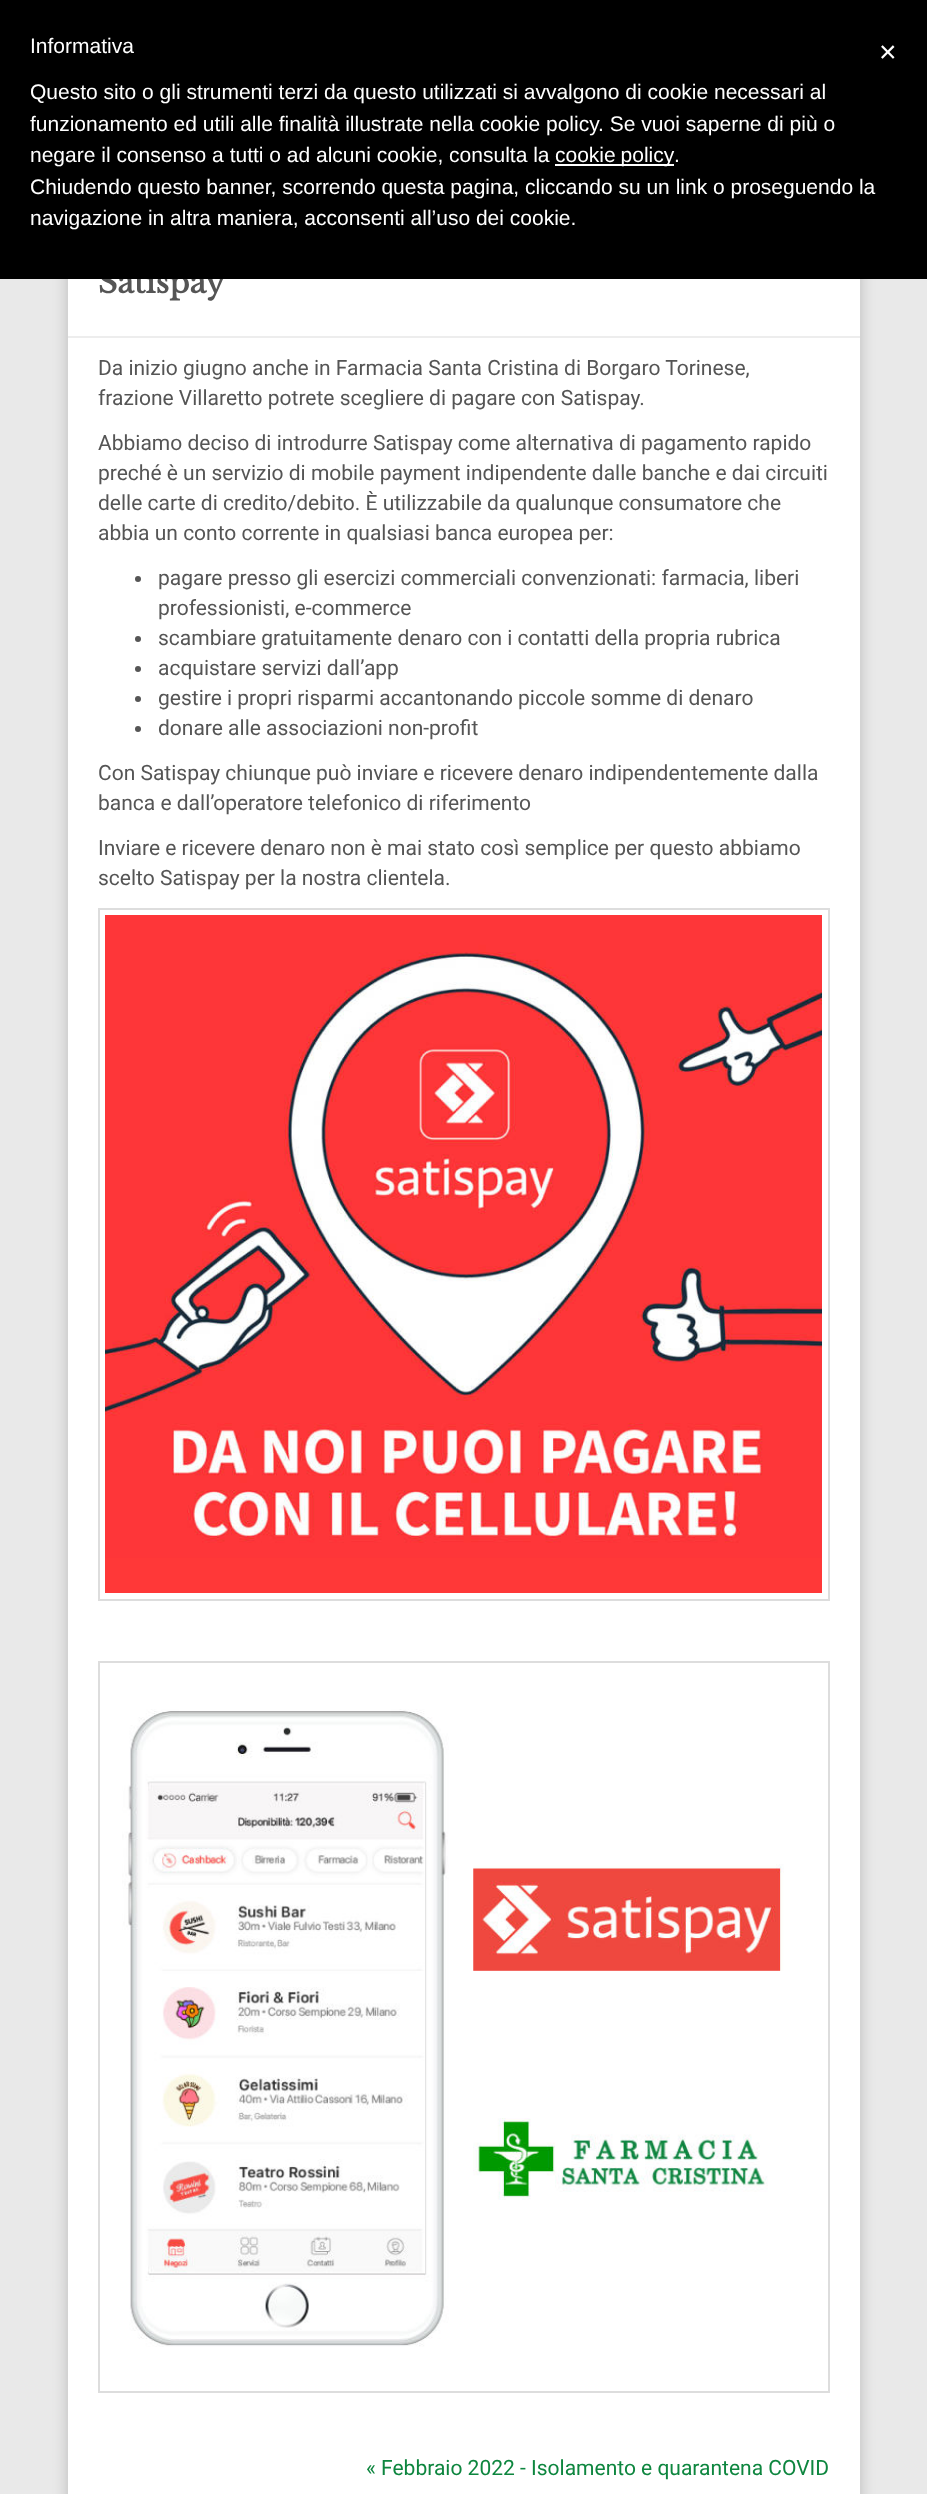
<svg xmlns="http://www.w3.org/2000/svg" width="927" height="2494">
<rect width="100%" height="100%" fill="#e9e9e9"/>
<rect x="68" y="198" width="792" height="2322" rx="3" fill="#00000033" filter="blur(7.5px)"/>
<rect x="68" y="279" width="792" height="2215" fill="#fff"/>
<text x="98" y="293" style="font-family:Libre Baskerville;font-size:30px;font-weight:bold;fill:#555">Satispay</text>
<rect width="927" height="279" fill="#000"/>
<text x="30" y="53" style="font-family:Liberation Sans;font-size:21px;fill:#fff">Informativa</text>
<text x="30" y="99" style="font-family:Liberation Sans;font-size:21px;fill:#fff">Questo sito o gli strumenti terzi da questo utilizzati si avvalgono di cookie necessari al</text>
<text x="30" y="131" style="font-family:Liberation Sans;font-size:21px;fill:#fff">funzionamento ed utili alle finalità illustrate nella cookie policy. Se vuoi saperne di più o</text>
<text x="30" y="162" style="font-family:Liberation Sans;font-size:21px;fill:#fff">negare il consenso a tutti o ad alcuni cookie, consulta la</text>
<rect x="555" y="164" width="119" height="2" fill="#fff"/>
<text x="555" y="162" word-spacing="-1" style="font-family:Liberation Sans;font-size:21px;fill:#fff">cookie policy</text>
<text x="674" y="162" style="font-family:Liberation Sans;font-size:21px;fill:#fff">.</text>
<text x="30" y="194" style="font-family:Liberation Sans;font-size:21px;fill:#fff">Chiudendo questo banner, scorrendo questa pagina, cliccando su un link o proseguendo la</text>
<text x="30" y="225" style="font-family:Liberation Sans;font-size:21px;fill:#fff">navigazione in altra maniera, acconsenti all’uso dei cookie.</text>
<text x="879" y="62" style="font-family:Liberation Sans;font-size:30px;fill:#fff">×</text>
<rect x="68" y="336" width="792" height="2" fill="#ededed"/>
<text x="98" y="375" style="font-family:Roboto;font-size:21px;fill:#555">Da inizio giugno anche in Farmacia Santa Cristina di Borgaro Torinese,</text>
<text x="98" y="405" style="font-family:Roboto;font-size:21px;fill:#555">frazione Villaretto potrete scegliere di pagare con Satispay.</text>
<text x="98" y="450" style="font-family:Roboto;font-size:21px;fill:#555">Abbiamo deciso di introdurre Satispay come alternativa di pagamento rapido</text>
<text x="98" y="480" style="font-family:Roboto;font-size:21px;fill:#555">preché è un servizio di mobile payment indipendente dalle banche e dai circuiti</text>
<text x="98" y="510" style="font-family:Roboto;font-size:21px;fill:#555">delle carte di credito/debito. È utilizzabile da qualunque consumatore che</text>
<text x="98" y="540" style="font-family:Roboto;font-size:21px;fill:#555">abbia un conto corrente in qualsiasi banca europea per:</text>
<circle cx="138" cy="579" r="3" fill="#555"/>
<text x="158" y="585" style="font-family:Roboto;font-size:21px;fill:#555">pagare presso gli esercizi commerciali convenzionati: farmacia, liberi</text>
<text x="158" y="615" style="font-family:Roboto;font-size:21px;fill:#555">professionisti, e-commerce</text>
<circle cx="138" cy="639" r="3" fill="#555"/>
<text x="158" y="645" style="font-family:Roboto;font-size:21px;fill:#555">scambiare gratuitamente denaro con i contatti della propria rubrica</text>
<circle cx="138" cy="669" r="3" fill="#555"/>
<text x="158" y="675" style="font-family:Roboto;font-size:21px;fill:#555">acquistare servizi dall’app</text>
<circle cx="138" cy="699" r="3" fill="#555"/>
<text x="158" y="705" style="font-family:Roboto;font-size:21px;fill:#555">gestire i propri risparmi accantonando piccole somme di denaro</text>
<circle cx="138" cy="729" r="3" fill="#555"/>
<text x="158" y="735" style="font-family:Roboto;font-size:21px;fill:#555">donare alle associazioni non-profit</text>
<text x="98" y="780" style="font-family:Roboto;font-size:21px;fill:#555">Con Satispay chiunque può inviare e ricevere denaro indipendentemente dalla</text>
<text x="98" y="810" style="font-family:Roboto;font-size:21px;fill:#555">banca e dall’operatore telefonico di riferimento</text>
<text x="98" y="855" style="font-family:Roboto;font-size:21px;fill:#555">Inviare e ricevere denaro non è mai stato così semplice per questo abbiamo</text>
<text x="98" y="885" style="font-family:Roboto;font-size:21px;fill:#555">scelto Satispay per la nostra clientela.</text>
<rect x="99" y="909" width="730" height="691" fill="none" stroke="#ddd" stroke-width="2"/>
<image x="105" y="915" width="717" height="678" href="media/1.png"/>
<rect x="99" y="1662" width="730" height="730" fill="none" stroke="#ddd" stroke-width="2"/>
<image x="122" y="1709" width="662" height="638" href="media/2.png"/>
<text x="366" y="2475" style="font-family:Roboto;font-size:21px;fill:#0e863f">« Febbraio 2022 - Isolamento e quarantena COVID</text>
</svg>
